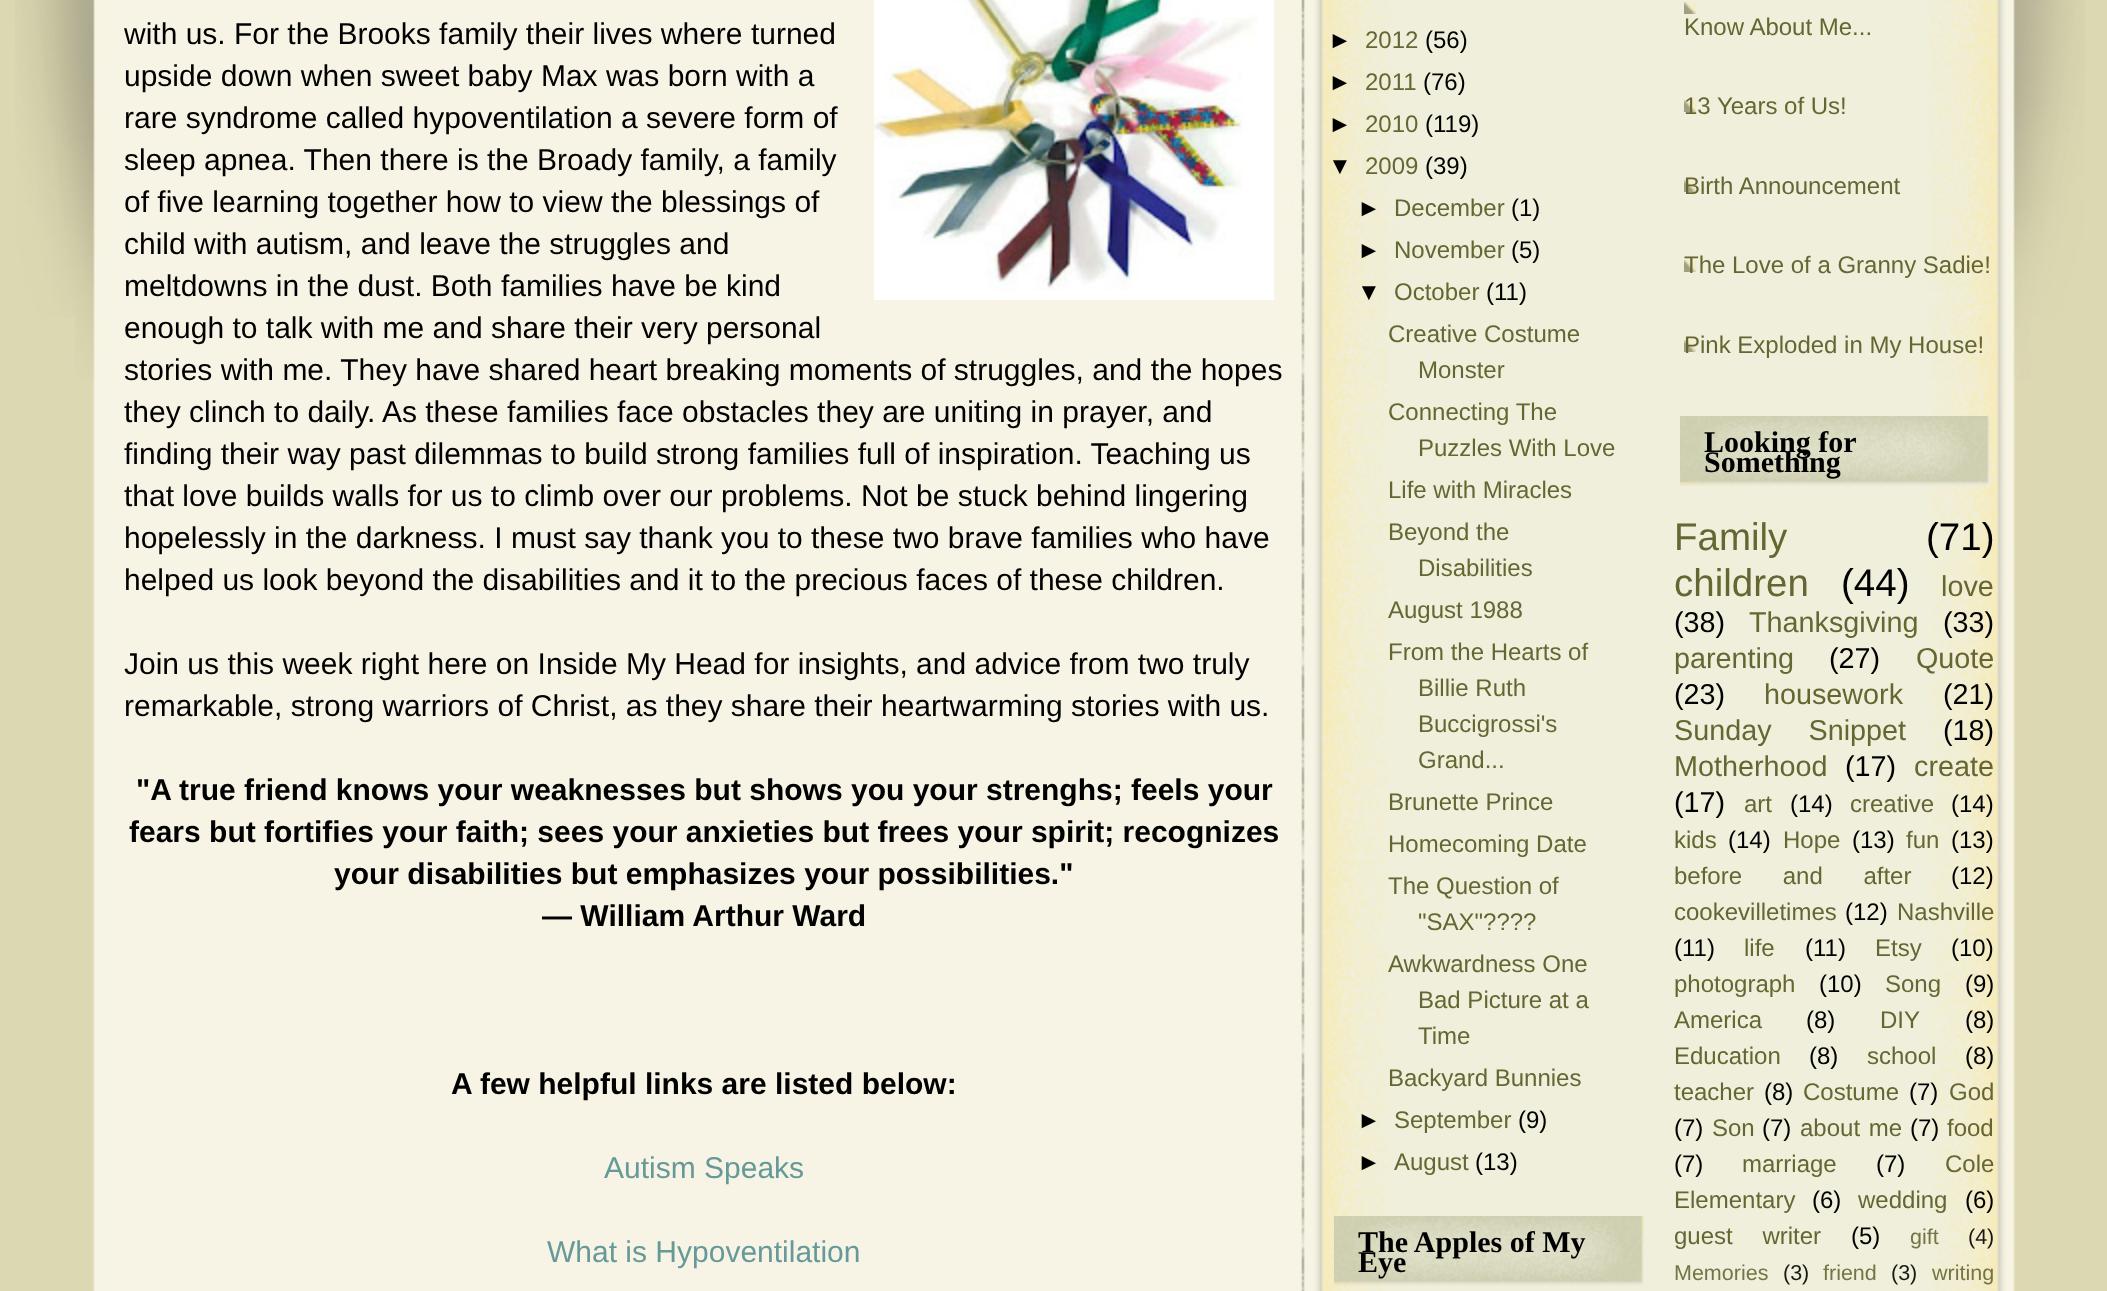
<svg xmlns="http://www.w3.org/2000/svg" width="2107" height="1291">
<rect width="100%" height="100%" fill="#fff"/>
<image x="0" y="0" width="2107" height="1291" href="media/1.png"/>
<image x="15" y="0" width="2070" height="318" href="media/2.png"/>
<image x="75" y="0" width="1956" height="380" href="media/3.png"/>
<image x="77" y="380" width="1954" height="911" href="media/4.png"/>
<text x="124" y="44" style="font-family:Liberation Sans;font-size:30px;fill:#000">with us. For the Brooks family their lives where turned</text>
<image x="874" y="0" width="400" height="300" href="media/5.png"/>
<text x="124" y="86" style="font-family:Liberation Sans;font-size:30px;fill:#000">upside down when sweet baby Max was born with a</text>
<text x="124" y="128" style="font-family:Liberation Sans;font-size:30px;fill:#000">rare syndrome called hypoventilation a severe form of</text>
<text x="124" y="170" style="font-family:Liberation Sans;font-size:30px;fill:#000">sleep apnea. Then there is the Broady family, a family</text>
<text x="124" y="212" style="font-family:Liberation Sans;font-size:30px;fill:#000">of five learning together how to view the blessings of</text>
<text x="124" y="254" style="font-family:Liberation Sans;font-size:30px;fill:#000">child with autism, and leave the struggles and</text>
<text x="124" y="296" style="font-family:Liberation Sans;font-size:30px;fill:#000">meltdowns in the dust. Both families have be kind</text>
<text x="124" y="338" style="font-family:Liberation Sans;font-size:30px;fill:#000">enough to talk with me and share their very personal</text>
<text x="124" y="380" style="font-family:Liberation Sans;font-size:30px;fill:#000">stories with me. They have shared heart breaking moments of struggles, and the hopes</text>
<text x="124" y="422" style="font-family:Liberation Sans;font-size:30px;fill:#000">they clinch to daily. As these families face obstacles they are uniting in prayer, and</text>
<text x="124" y="464" style="font-family:Liberation Sans;font-size:30px;fill:#000">finding their way past dilemmas to build strong families full of inspiration. Teaching us</text>
<text x="124" y="506" style="font-family:Liberation Sans;font-size:30px;fill:#000">that love builds walls for us to climb over our problems. Not be stuck behind lingering</text>
<text x="124" y="548" style="font-family:Liberation Sans;font-size:30px;fill:#000">hopelessly in the darkness. I must say thank you to these two brave families who have</text>
<text x="124" y="590" style="font-family:Liberation Sans;font-size:30px;fill:#000">helped us look beyond the disabilities and it to the precious faces of these children.</text>
<text x="124" y="674" style="font-family:Liberation Sans;font-size:30px;fill:#000">Join us this week right here on Inside My Head for insights, and advice from two truly</text>
<text x="124" y="716" style="font-family:Liberation Sans;font-size:30px;fill:#000">remarkable, strong warriors of Christ, as they share their heartwarming stories with us.</text>
<text x="136" y="800" style="font-family:Liberation Sans;font-size:30px;font-weight:bold;fill:#000">"A true friend knows your weaknesses but shows you your strenghs; feels your</text>
<text x="129" y="842" style="font-family:Liberation Sans;font-size:30px;font-weight:bold;fill:#000">fears but fortifies your faith; sees your anxieties but frees your spirit; recognizes</text>
<text x="334" y="884" style="font-family:Liberation Sans;font-size:30px;font-weight:bold;fill:#000">your disabilities but emphasizes your possibilities."</text>
<text x="542" y="926" style="font-family:Liberation Sans;font-size:30px;font-weight:bold;fill:#000">— William Arthur Ward</text>
<text x="451" y="1094" style="font-family:Liberation Sans;font-size:30px;font-weight:bold;fill:#000">A few helpful links are listed below:</text>
<text x="604" y="1178" style="font-family:Liberation Sans;font-size:30px;fill:#699">Autism Speaks</text>
<text x="547" y="1262" style="font-family:Liberation Sans;font-size:30px;fill:#699">What is Hypoventilation</text>
<text x="1328" y="48" style="font-family:Liberation Sans;font-size:24px;fill:#000">►</text>
<text x="1365" y="48" style="font-family:Liberation Sans;font-size:24px;fill:#663">2012</text>
<text x="1425" y="48" style="font-family:Liberation Sans;font-size:24px;fill:#000">(56)</text>
<text x="1328" y="90" style="font-family:Liberation Sans;font-size:24px;fill:#000">►</text>
<text x="1365" y="90" style="font-family:Liberation Sans;font-size:24px;fill:#663">2011</text>
<text x="1423" y="90" style="font-family:Liberation Sans;font-size:24px;fill:#000">(76)</text>
<text x="1328" y="132" style="font-family:Liberation Sans;font-size:24px;fill:#000">►</text>
<text x="1365" y="132" style="font-family:Liberation Sans;font-size:24px;fill:#663">2010</text>
<text x="1425" y="132" style="font-family:Liberation Sans;font-size:24px;fill:#000">(119)</text>
<text x="1328" y="174" style="font-family:Liberation Sans;font-size:24px;fill:#000">▼</text>
<text x="1365" y="174" style="font-family:Liberation Sans;font-size:24px;fill:#663">2009</text>
<text x="1425" y="174" style="font-family:Liberation Sans;font-size:24px;fill:#000">(39)</text>
<text x="1357" y="216" style="font-family:Liberation Sans;font-size:24px;fill:#000">►</text>
<text x="1394" y="216" style="font-family:Liberation Sans;font-size:24px;fill:#663">December</text>
<text x="1511" y="216" style="font-family:Liberation Sans;font-size:24px;fill:#000">(1)</text>
<text x="1357" y="258" style="font-family:Liberation Sans;font-size:24px;fill:#000">►</text>
<text x="1394" y="258" style="font-family:Liberation Sans;font-size:24px;fill:#663">November</text>
<text x="1511" y="258" style="font-family:Liberation Sans;font-size:24px;fill:#000">(5)</text>
<text x="1357" y="300" style="font-family:Liberation Sans;font-size:24px;fill:#000">▼</text>
<text x="1394" y="300" style="font-family:Liberation Sans;font-size:24px;fill:#663">October</text>
<text x="1486" y="300" style="font-family:Liberation Sans;font-size:24px;fill:#000">(11)</text>
<text x="1388" y="342" style="font-family:Liberation Sans;font-size:24px;fill:#663">Creative Costume</text>
<text x="1418" y="378" style="font-family:Liberation Sans;font-size:24px;fill:#663">Monster</text>
<text x="1388" y="420" style="font-family:Liberation Sans;font-size:24px;fill:#663">Connecting The</text>
<text x="1418" y="456" style="font-family:Liberation Sans;font-size:24px;fill:#663">Puzzles With Love</text>
<text x="1388" y="498" style="font-family:Liberation Sans;font-size:24px;fill:#663">Life with Miracles</text>
<text x="1388" y="540" style="font-family:Liberation Sans;font-size:24px;fill:#663">Beyond the</text>
<text x="1418" y="576" style="font-family:Liberation Sans;font-size:24px;fill:#663">Disabilities</text>
<text x="1388" y="618" style="font-family:Liberation Sans;font-size:24px;fill:#663">August 1988</text>
<text x="1388" y="660" style="font-family:Liberation Sans;font-size:24px;fill:#663">From the Hearts of</text>
<text x="1418" y="696" style="font-family:Liberation Sans;font-size:24px;fill:#663">Billie Ruth</text>
<text x="1418" y="732" style="font-family:Liberation Sans;font-size:24px;fill:#663">Buccigrossi's</text>
<text x="1418" y="768" style="font-family:Liberation Sans;font-size:24px;fill:#663">Grand...</text>
<text x="1388" y="810" style="font-family:Liberation Sans;font-size:24px;fill:#663">Brunette Prince</text>
<text x="1388" y="852" style="font-family:Liberation Sans;font-size:24px;fill:#663">Homecoming Date</text>
<text x="1388" y="894" style="font-family:Liberation Sans;font-size:24px;fill:#663">The Question of</text>
<text x="1418" y="930" style="font-family:Liberation Sans;font-size:24px;fill:#663">"SAX"????</text>
<text x="1388" y="972" style="font-family:Liberation Sans;font-size:24px;fill:#663">Awkwardness One</text>
<text x="1418" y="1008" style="font-family:Liberation Sans;font-size:24px;fill:#663">Bad Picture at a</text>
<text x="1418" y="1044" style="font-family:Liberation Sans;font-size:24px;fill:#663">Time</text>
<text x="1388" y="1086" style="font-family:Liberation Sans;font-size:24px;fill:#663">Backyard Bunnies</text>
<text x="1357" y="1128" style="font-family:Liberation Sans;font-size:24px;fill:#000">►</text>
<text x="1394" y="1128" style="font-family:Liberation Sans;font-size:24px;fill:#663">September</text>
<text x="1518" y="1128" style="font-family:Liberation Sans;font-size:24px;fill:#000">(9)</text>
<text x="1357" y="1170" style="font-family:Liberation Sans;font-size:24px;fill:#000">►</text>
<text x="1394" y="1170" style="font-family:Liberation Sans;font-size:24px;fill:#663">August</text>
<text x="1475" y="1170" style="font-family:Liberation Sans;font-size:24px;fill:#000">(13)</text>
<image x="1334" y="1216" width="310" height="70" href="media/6.png"/>
<text x="1358" y="1252" style="font-family:Liberation Serif;font-size:30px;font-weight:bold;fill:#000">The Apples of My</text>
<text x="1358" y="1272" style="font-family:Liberation Serif;font-size:30px;font-weight:bold;fill:#000">Eye</text>
<image x="1684" y="2" width="12" height="12" href="media/7.png"/>
<text x="1684" y="35" style="font-family:Liberation Sans;font-size:24px;fill:#663">Know About Me...</text>
<image x="1684" y="100" width="12" height="12" href="media/7.png"/>
<text x="1684" y="114" style="font-family:Liberation Sans;font-size:24px;fill:#663">13 Years of Us!</text>
<image x="1684" y="180" width="12" height="12" href="media/7.png"/>
<text x="1684" y="194" style="font-family:Liberation Sans;font-size:24px;fill:#663">Birth Announcement</text>
<image x="1684" y="260" width="12" height="12" href="media/7.png"/>
<text x="1684" y="273" style="font-family:Liberation Sans;font-size:24px;fill:#663">The Love of a Granny Sadie!</text>
<image x="1684" y="340" width="12" height="12" href="media/7.png"/>
<text x="1684" y="353" style="font-family:Liberation Sans;font-size:24px;fill:#663">Pink Exploded in My House!</text>
<image x="1680" y="416" width="310" height="70" href="media/6.png"/>
<text x="1704" y="452" style="font-family:Liberation Serif;font-size:30px;font-weight:bold;fill:#000">Looking for</text>
<text x="1704" y="472" style="font-family:Liberation Serif;font-size:30px;font-weight:bold;fill:#000">Something</text>
<text x="1674" y="550" style="font-family:Liberation Sans;font-size:38.5px;fill:#663">Family</text>
<text x="1926" y="550" style="font-family:Liberation Sans;font-size:38.5px;fill:#000">(71)</text>
<text x="1674" y="596" style="font-family:Liberation Sans;font-size:38.5px;fill:#663">children</text>
<text x="1841" y="596" style="font-family:Liberation Sans;font-size:38.5px;fill:#000">(44)</text>
<text x="1941" y="596" style="font-family:Liberation Sans;font-size:28.75px;fill:#663">love</text>
<text x="1674" y="632" style="font-family:Liberation Sans;font-size:28.75px;fill:#000">(38)</text>
<text x="1749" y="632" style="font-family:Liberation Sans;font-size:28.75px;fill:#663">Thanksgiving</text>
<text x="1943" y="632" style="font-family:Liberation Sans;font-size:28.75px;fill:#000">(33)</text>
<text x="1674" y="668" style="font-family:Liberation Sans;font-size:28.75px;fill:#663">parenting</text>
<text x="1829" y="668" style="font-family:Liberation Sans;font-size:28.75px;fill:#000">(27)</text>
<text x="1916" y="668" style="font-family:Liberation Sans;font-size:28.75px;fill:#663">Quote</text>
<text x="1674" y="704" style="font-family:Liberation Sans;font-size:28.75px;fill:#000">(23)</text>
<text x="1764" y="704" style="font-family:Liberation Sans;font-size:28.75px;fill:#663">housework</text>
<text x="1943" y="704" style="font-family:Liberation Sans;font-size:28.75px;fill:#000">(21)</text>
<text x="1674" y="740" word-spacing="29" style="font-family:Liberation Sans;font-size:28.75px;fill:#663">Sunday Snippet</text>
<text x="1943" y="740" style="font-family:Liberation Sans;font-size:28.75px;fill:#000">(18)</text>
<text x="1674" y="776" style="font-family:Liberation Sans;font-size:28.75px;fill:#663">Motherhood</text>
<text x="1845" y="776" style="font-family:Liberation Sans;font-size:28.75px;fill:#000">(17)</text>
<text x="1914" y="776" style="font-family:Liberation Sans;font-size:28.75px;fill:#663">create</text>
<text x="1674" y="812" style="font-family:Liberation Sans;font-size:28.75px;fill:#000">(17)</text>
<text x="1744" y="812" style="font-family:Liberation Sans;font-size:24px;fill:#663">art</text>
<text x="1790" y="812" style="font-family:Liberation Sans;font-size:24px;fill:#000">(14)</text>
<text x="1850" y="812" style="font-family:Liberation Sans;font-size:24px;fill:#663">creative</text>
<text x="1951" y="812" style="font-family:Liberation Sans;font-size:24px;fill:#000">(14)</text>
<text x="1674" y="848" style="font-family:Liberation Sans;font-size:24px;fill:#663">kids</text>
<text x="1728" y="848" style="font-family:Liberation Sans;font-size:24px;fill:#000">(14)</text>
<text x="1783" y="848" style="font-family:Liberation Sans;font-size:24px;fill:#663">Hope</text>
<text x="1852" y="848" style="font-family:Liberation Sans;font-size:24px;fill:#000">(13)</text>
<text x="1906" y="848" style="font-family:Liberation Sans;font-size:24px;fill:#663">fun</text>
<text x="1951" y="848" style="font-family:Liberation Sans;font-size:24px;fill:#000">(13)</text>
<text x="1674" y="884" word-spacing="34" style="font-family:Liberation Sans;font-size:24px;fill:#663">before and after</text>
<text x="1951" y="884" style="font-family:Liberation Sans;font-size:24px;fill:#000">(12)</text>
<text x="1674" y="920" style="font-family:Liberation Sans;font-size:24px;fill:#663">cookevilletimes</text>
<text x="1845" y="920" style="font-family:Liberation Sans;font-size:24px;fill:#000">(12)</text>
<text x="1897" y="920" style="font-family:Liberation Sans;font-size:24px;fill:#663">Nashville</text>
<text x="1674" y="956" style="font-family:Liberation Sans;font-size:24px;fill:#000">(11)</text>
<text x="1744" y="956" style="font-family:Liberation Sans;font-size:24px;fill:#663">life</text>
<text x="1805" y="956" style="font-family:Liberation Sans;font-size:24px;fill:#000">(11)</text>
<text x="1875" y="956" style="font-family:Liberation Sans;font-size:24px;fill:#663">Etsy</text>
<text x="1951" y="956" style="font-family:Liberation Sans;font-size:24px;fill:#000">(10)</text>
<text x="1674" y="992" style="font-family:Liberation Sans;font-size:24px;fill:#663">photograph</text>
<text x="1819" y="992" style="font-family:Liberation Sans;font-size:24px;fill:#000">(10)</text>
<text x="1885" y="992" style="font-family:Liberation Sans;font-size:24px;fill:#663">Song</text>
<text x="1965" y="992" style="font-family:Liberation Sans;font-size:24px;fill:#000">(9)</text>
<text x="1674" y="1028" style="font-family:Liberation Sans;font-size:24px;fill:#663">America</text>
<text x="1806" y="1028" style="font-family:Liberation Sans;font-size:24px;fill:#000">(8)</text>
<text x="1880" y="1028" style="font-family:Liberation Sans;font-size:24px;fill:#663">DIY</text>
<text x="1965" y="1028" style="font-family:Liberation Sans;font-size:24px;fill:#000">(8)</text>
<text x="1674" y="1064" style="font-family:Liberation Sans;font-size:24px;fill:#663">Education</text>
<text x="1809" y="1064" style="font-family:Liberation Sans;font-size:24px;fill:#000">(8)</text>
<text x="1867" y="1064" style="font-family:Liberation Sans;font-size:24px;fill:#663">school</text>
<text x="1965" y="1064" style="font-family:Liberation Sans;font-size:24px;fill:#000">(8)</text>
<text x="1674" y="1100" style="font-family:Liberation Sans;font-size:24px;fill:#663">teacher</text>
<text x="1764" y="1100" style="font-family:Liberation Sans;font-size:24px;fill:#000">(8)</text>
<text x="1803" y="1100" style="font-family:Liberation Sans;font-size:24px;fill:#663">Costume</text>
<text x="1909" y="1100" style="font-family:Liberation Sans;font-size:24px;fill:#000">(7)</text>
<text x="1949" y="1100" style="font-family:Liberation Sans;font-size:24px;fill:#663">God</text>
<text x="1674" y="1136" style="font-family:Liberation Sans;font-size:24px;fill:#000">(7)</text>
<text x="1712" y="1136" style="font-family:Liberation Sans;font-size:24px;fill:#663">Son</text>
<text x="1762" y="1136" style="font-family:Liberation Sans;font-size:24px;fill:#000">(7)</text>
<text x="1800" y="1136" word-spacing="2" style="font-family:Liberation Sans;font-size:24px;fill:#663">about me</text>
<text x="1910" y="1136" style="font-family:Liberation Sans;font-size:24px;fill:#000">(7)</text>
<text x="1947" y="1136" style="font-family:Liberation Sans;font-size:24px;fill:#663">food</text>
<text x="1674" y="1172" style="font-family:Liberation Sans;font-size:24px;fill:#000">(7)</text>
<text x="1742" y="1172" style="font-family:Liberation Sans;font-size:24px;fill:#663">marriage</text>
<text x="1876" y="1172" style="font-family:Liberation Sans;font-size:24px;fill:#000">(7)</text>
<text x="1945" y="1172" style="font-family:Liberation Sans;font-size:24px;fill:#663">Cole</text>
<text x="1674" y="1208" style="font-family:Liberation Sans;font-size:24px;fill:#663">Elementary</text>
<text x="1812" y="1208" style="font-family:Liberation Sans;font-size:24px;fill:#000">(6)</text>
<text x="1858" y="1208" style="font-family:Liberation Sans;font-size:24px;fill:#663">wedding</text>
<text x="1965" y="1208" style="font-family:Liberation Sans;font-size:24px;fill:#000">(6)</text>
<text x="1674" y="1244" word-spacing="23" style="font-family:Liberation Sans;font-size:24px;fill:#663">guest writer</text>
<text x="1851" y="1244" style="font-family:Liberation Sans;font-size:24px;fill:#000">(5)</text>
<text x="1910" y="1244" style="font-family:Liberation Sans;font-size:21.5px;fill:#747444">gift</text>
<text x="1968" y="1244" style="font-family:Liberation Sans;font-size:21.5px;fill:#181814">(4)</text>
<text x="1674" y="1280" style="font-family:Liberation Sans;font-size:21.5px;fill:#747444">Memories</text>
<text x="1783" y="1280" style="font-family:Liberation Sans;font-size:21.5px;fill:#181814">(3)</text>
<text x="1823" y="1280" style="font-family:Liberation Sans;font-size:21.5px;fill:#747444">friend</text>
<text x="1891" y="1280" style="font-family:Liberation Sans;font-size:21.5px;fill:#181814">(3)</text>
<text x="1932" y="1280" style="font-family:Liberation Sans;font-size:21.5px;fill:#747444">writing</text>
</svg>
